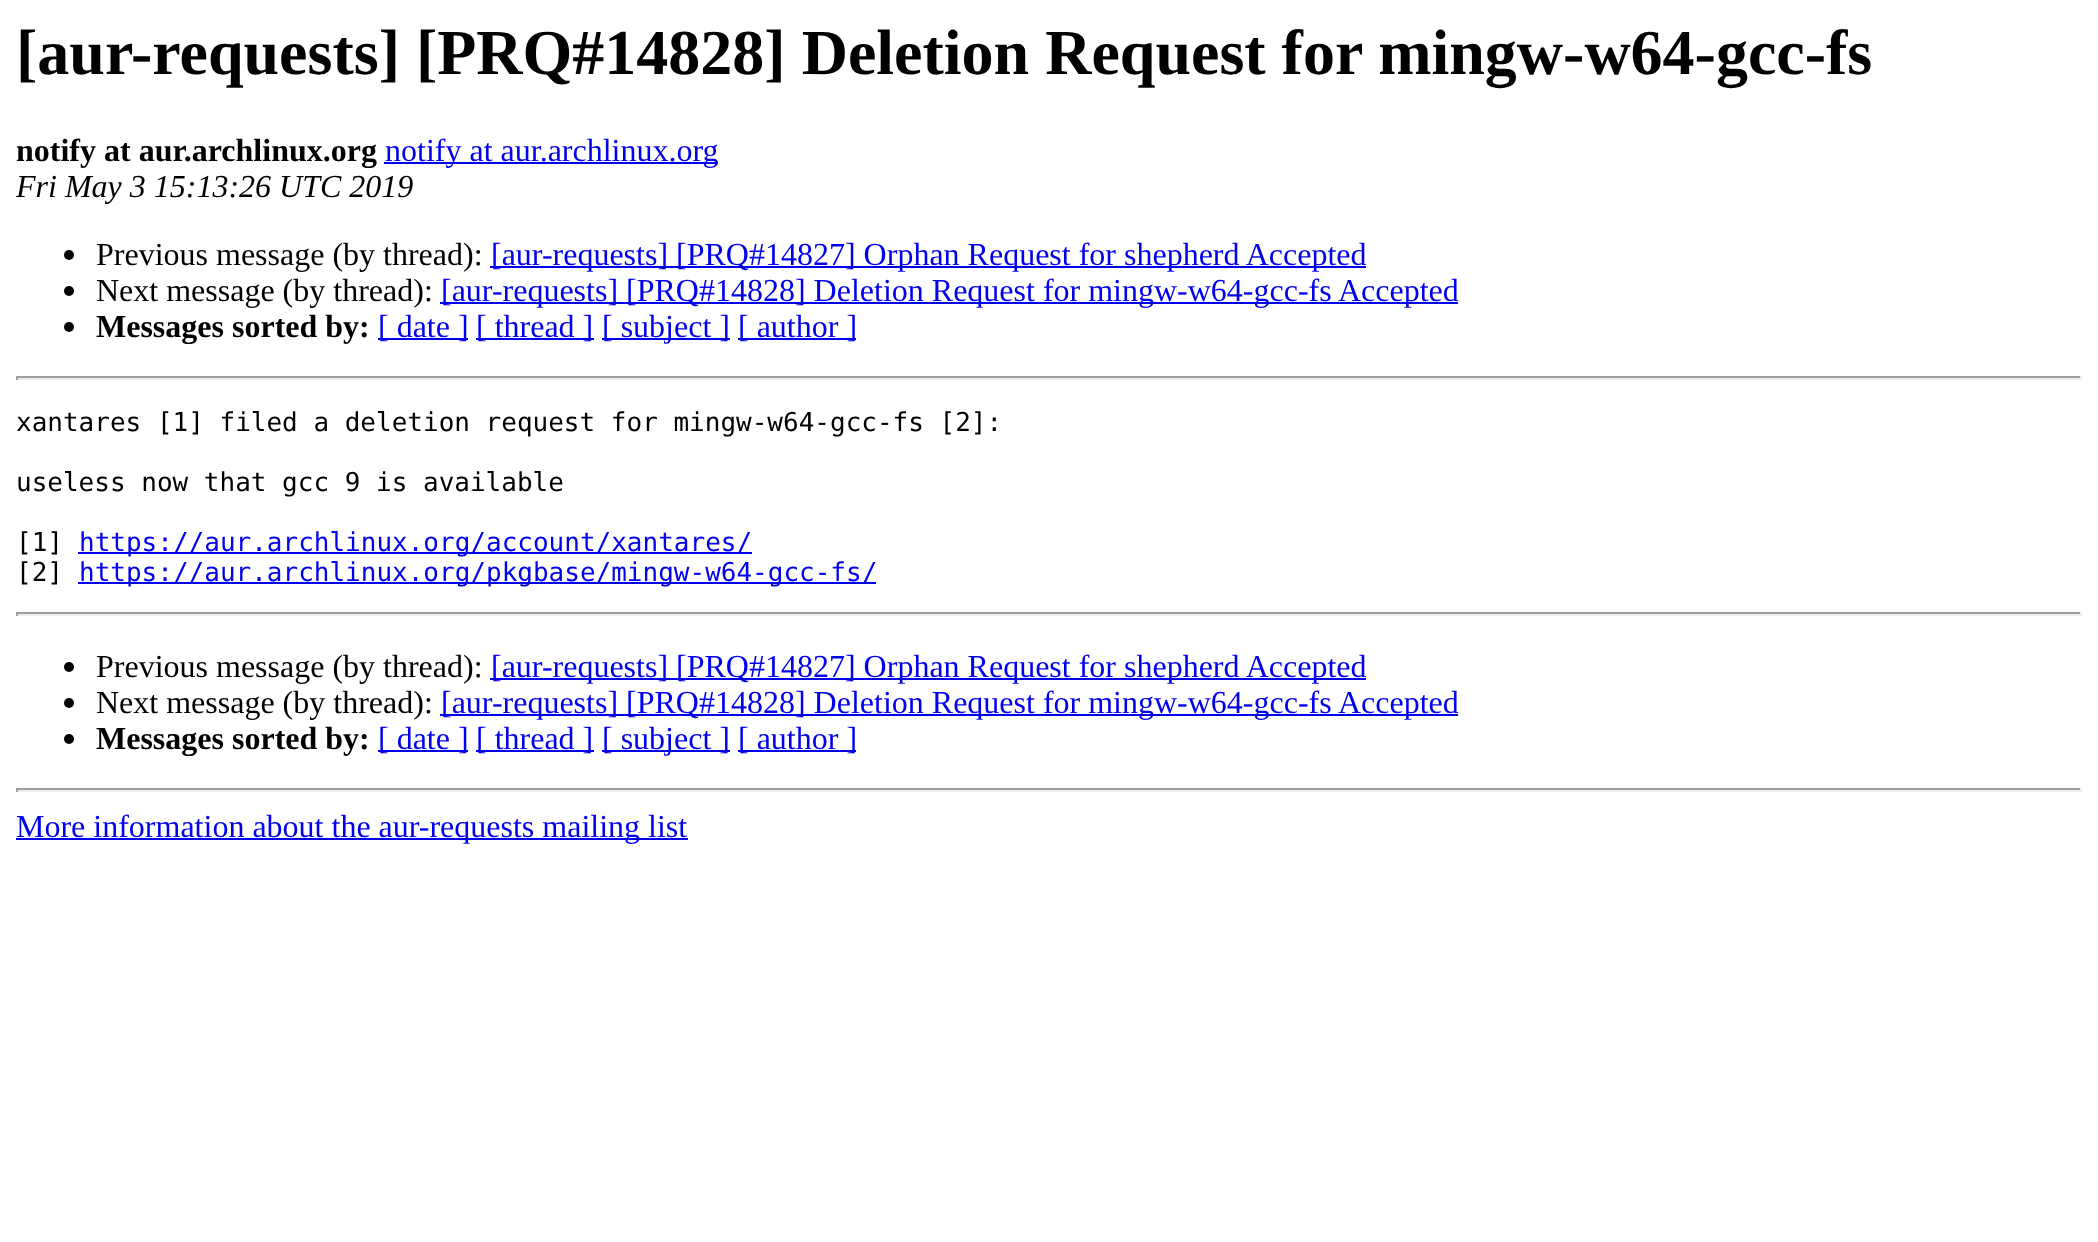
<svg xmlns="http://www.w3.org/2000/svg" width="2098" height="1242">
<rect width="100%" height="100%" fill="#fff"/>
<text x="16" y="74" style="font-family:Liberation Serif;font-size:64px;font-weight:bold;fill:#000">[aur-requests] [PRQ#14828] Deletion Request for mingw-w64-gcc-fs</text>
<text x="16" y="161" style="font-family:Liberation Serif;font-size:32px;font-weight:bold;fill:#000">notify at aur.archlinux.org</text>
<rect x="384" y="162" width="334" height="2" fill="#00e"/>
<text x="385" y="161" style="font-family:Liberation Serif;font-size:32px;fill:#00e">notify at aur.archlinux.org</text>
<text x="16" y="197" style="font-family:Liberation Serif;font-size:32px;font-style:italic;fill:#000">Fri May 3 15:13:26 UTC 2019</text>
<circle cx="69" cy="255" r="5" fill="#000"/>
<text x="96" y="265" style="font-family:Liberation Serif;font-size:32px;fill:#000">Previous message (by thread):</text>
<rect x="490" y="266" width="876" height="2" fill="#00e"/>
<text x="491" y="265" style="font-family:Liberation Serif;font-size:32px;fill:#00e">[aur-requests] [PRQ#14827] Orphan Request for shepherd Accepted</text>
<circle cx="69" cy="291" r="5" fill="#000"/>
<text x="96" y="301" style="font-family:Liberation Serif;font-size:32px;fill:#000">Next message (by thread):</text>
<rect x="440" y="302" width="1018" height="2" fill="#00e"/>
<text x="441" y="301" style="font-family:Liberation Serif;font-size:32px;fill:#00e">[aur-requests] [PRQ#14828] Deletion Request for mingw-w64-gcc-fs Accepted</text>
<circle cx="69" cy="327" r="5" fill="#000"/>
<text x="96" y="337" style="font-family:Liberation Serif;font-size:32px;font-weight:bold;fill:#000">Messages sorted by:</text>
<rect x="378" y="338" width="90" height="2" fill="#00e"/>
<text x="378" y="337" style="font-family:Liberation Serif;font-size:32px;fill:#00e">[ date ]</text>
<rect x="476" y="338" width="118" height="2" fill="#00e"/>
<text x="476" y="337" style="font-family:Liberation Serif;font-size:32px;fill:#00e">[ thread ]</text>
<rect x="602" y="338" width="128" height="2" fill="#00e"/>
<text x="602" y="337" style="font-family:Liberation Serif;font-size:32px;fill:#00e">[ subject ]</text>
<rect x="738" y="338" width="118" height="2" fill="#00e"/>
<text x="738" y="337" style="font-family:Liberation Serif;font-size:32px;fill:#00e">[ author ]</text>
<rect x="16" y="376" width="2066" height="2" fill="#9f9f9f"/>
<rect x="2080" y="376" width="2" height="4" fill="#eee"/>
<rect x="16" y="378" width="2066" height="2" fill="#eee"/>
<rect x="16" y="376" width="2" height="4" fill="#9f9f9f"/>
<text x="16" y="431" style="font-family:DejaVu Sans Mono;font-size:26px;fill:#000">xantares [1] filed a deletion request for mingw-w64-gcc-fs [2]:</text>
<text x="16" y="491" style="font-family:DejaVu Sans Mono;font-size:26px;fill:#000">useless now that gcc 9 is available</text>
<text x="16" y="551" style="font-family:DejaVu Sans Mono;font-size:26px;fill:#000">[1]</text>
<rect x="78" y="552" width="674" height="2" fill="#00e"/>
<text x="79" y="551" style="font-family:DejaVu Sans Mono;font-size:26px;fill:#00e">https://aur.archlinux.org/account/xantares/</text>
<text x="16" y="581" style="font-family:DejaVu Sans Mono;font-size:26px;fill:#000">[2]</text>
<rect x="78" y="582" width="798" height="2" fill="#00e"/>
<text x="79" y="581" style="font-family:DejaVu Sans Mono;font-size:26px;fill:#00e">https://aur.archlinux.org/pkgbase/mingw-w64-gcc-fs/</text>
<rect x="16" y="612" width="2066" height="2" fill="#9f9f9f"/>
<rect x="2080" y="612" width="2" height="4" fill="#eee"/>
<rect x="16" y="614" width="2066" height="2" fill="#eee"/>
<rect x="16" y="612" width="2" height="4" fill="#9f9f9f"/>
<circle cx="69" cy="667" r="5" fill="#000"/>
<text x="96" y="677" style="font-family:Liberation Serif;font-size:32px;fill:#000">Previous message (by thread):</text>
<rect x="490" y="678" width="876" height="2" fill="#00e"/>
<text x="491" y="677" style="font-family:Liberation Serif;font-size:32px;fill:#00e">[aur-requests] [PRQ#14827] Orphan Request for shepherd Accepted</text>
<circle cx="69" cy="703" r="5" fill="#000"/>
<text x="96" y="713" style="font-family:Liberation Serif;font-size:32px;fill:#000">Next message (by thread):</text>
<rect x="440" y="714" width="1018" height="2" fill="#00e"/>
<text x="441" y="713" style="font-family:Liberation Serif;font-size:32px;fill:#00e">[aur-requests] [PRQ#14828] Deletion Request for mingw-w64-gcc-fs Accepted</text>
<circle cx="69" cy="739" r="5" fill="#000"/>
<text x="96" y="749" style="font-family:Liberation Serif;font-size:32px;font-weight:bold;fill:#000">Messages sorted by:</text>
<rect x="378" y="750" width="90" height="2" fill="#00e"/>
<text x="378" y="749" style="font-family:Liberation Serif;font-size:32px;fill:#00e">[ date ]</text>
<rect x="476" y="750" width="118" height="2" fill="#00e"/>
<text x="476" y="749" style="font-family:Liberation Serif;font-size:32px;fill:#00e">[ thread ]</text>
<rect x="602" y="750" width="128" height="2" fill="#00e"/>
<text x="602" y="749" style="font-family:Liberation Serif;font-size:32px;fill:#00e">[ subject ]</text>
<rect x="738" y="750" width="118" height="2" fill="#00e"/>
<text x="738" y="749" style="font-family:Liberation Serif;font-size:32px;fill:#00e">[ author ]</text>
<rect x="16" y="788" width="2066" height="2" fill="#9f9f9f"/>
<rect x="2080" y="788" width="2" height="4" fill="#eee"/>
<rect x="16" y="790" width="2066" height="2" fill="#eee"/>
<rect x="16" y="788" width="2" height="4" fill="#9f9f9f"/>
<rect x="16" y="838" width="672" height="2" fill="#00e"/>
<text x="16" y="837" style="font-family:Liberation Serif;font-size:32px;fill:#00e">More information about the aur-requests mailing list</text>
</svg>
